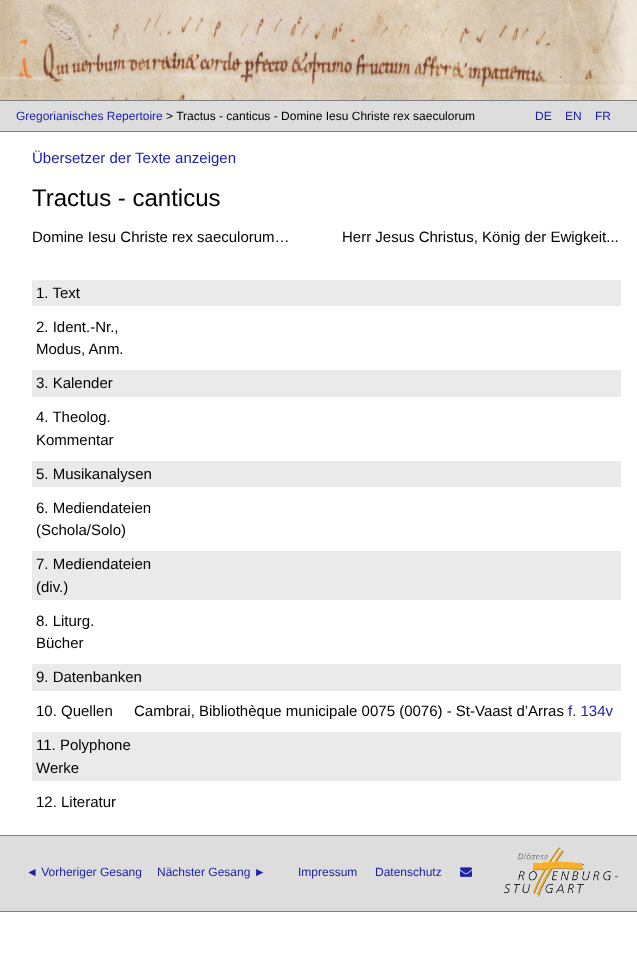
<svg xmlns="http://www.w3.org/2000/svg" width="637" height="976">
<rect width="100%" height="100%" fill="#fff"/>
<image x="0" y="0" width="637" height="100" href="media/1.png"/>
<rect y="101" width="637" height="30" fill="#ddd"/>
<rect y="100" width="637" height="1" fill="#808080"/>
<rect y="131" width="637" height="1" fill="#808080"/>
<text x="16" y="120" style="font-family:Liberation Sans;font-size:12px;fill:#1e22aa">Gregorianisches Repertoire</text>
<text x="166" y="120" style="font-family:Liberation Sans;font-size:12px;fill:#000">&gt; Tractus - canticus - Domine Iesu Christe rex saeculorum</text>
<text x="535" y="120" style="font-family:Liberation Sans;font-size:12px;fill:#1e22aa">DE</text>
<text x="565" y="120" style="font-family:Liberation Sans;font-size:12px;fill:#1e22aa">EN</text>
<text x="595" y="120" style="font-family:Liberation Sans;font-size:12px;fill:#1e22aa">FR</text>
<text x="32" y="163" style="font-family:Liberation Sans;font-size:15px;fill:#1e22aa">Übersetzer der Texte anzeigen</text>
<text x="32" y="206" style="font-family:Liberation Sans;font-size:24px;fill:#000">Tractus - canticus</text>
<text x="32" y="242" style="font-family:Liberation Sans;font-size:15px;fill:#000">Domine Iesu Christe rex saeculorum…</text>
<text x="342" y="242" style="font-family:Liberation Sans;font-size:15px;fill:#000">Herr Jesus Christus, König der Ewigkeit...</text>
<rect x="32" y="280" width="589" height="26" fill="#eaeaea"/>
<text x="36" y="298" style="font-family:Liberation Sans;font-size:15px;fill:#000">1. Text</text>
<text x="36" y="332" style="font-family:Liberation Sans;font-size:15px;fill:#000">2. Ident.-Nr.,</text>
<text x="36" y="354" style="font-family:Liberation Sans;font-size:15px;fill:#000">Modus, Anm.</text>
<rect x="32" y="370" width="589" height="27" fill="#eaeaea"/>
<text x="36" y="388" style="font-family:Liberation Sans;font-size:15px;fill:#000">3. Kalender</text>
<text x="36" y="422" style="font-family:Liberation Sans;font-size:15px;fill:#000">4. Theolog.</text>
<text x="36" y="445" style="font-family:Liberation Sans;font-size:15px;fill:#000">Kommentar</text>
<rect x="32" y="461" width="589" height="26" fill="#eaeaea"/>
<text x="36" y="479" style="font-family:Liberation Sans;font-size:15px;fill:#000">5. Musikanalysen</text>
<text x="36" y="513" style="font-family:Liberation Sans;font-size:15px;fill:#000">6. Mediendateien</text>
<text x="36" y="535" style="font-family:Liberation Sans;font-size:15px;fill:#000">(Schola/Solo)</text>
<rect x="32" y="551" width="589" height="49" fill="#eaeaea"/>
<text x="36" y="569" style="font-family:Liberation Sans;font-size:15px;fill:#000">7. Mediendateien</text>
<text x="36" y="592" style="font-family:Liberation Sans;font-size:15px;fill:#000">(div.)</text>
<text x="36" y="626" style="font-family:Liberation Sans;font-size:15px;fill:#000">8. Liturg.</text>
<text x="36" y="648" style="font-family:Liberation Sans;font-size:15px;fill:#000">Bücher</text>
<rect x="32" y="664" width="589" height="27" fill="#eaeaea"/>
<text x="36" y="682" style="font-family:Liberation Sans;font-size:15px;fill:#000">9. Datenbanken</text>
<text x="36" y="716" style="font-family:Liberation Sans;font-size:15px;fill:#000">10. Quellen</text>
<text x="134" y="716" style="font-family:Liberation Sans;font-size:15px;fill:#000">Cambrai, Bibliothèque municipale 0075 (0076) - St-Vaast d’Arras</text>
<text x="568" y="716" style="font-family:Liberation Sans;font-size:15px;fill:#1e22aa">f. 134v</text>
<rect x="32" y="732" width="589" height="49" fill="#eaeaea"/>
<text x="36" y="750" style="font-family:Liberation Sans;font-size:15px;fill:#000">11. Polyphone</text>
<text x="36" y="773" style="font-family:Liberation Sans;font-size:15px;fill:#000">Werke</text>
<text x="36" y="807" style="font-family:Liberation Sans;font-size:15px;fill:#000">12. Literatur</text>
<rect y="836" width="637" height="75" fill="#ddd"/>
<rect y="835" width="637" height="1" fill="#808080"/>
<rect y="911" width="637" height="1" fill="#808080"/>
<text x="26" y="876" style="font-family:Liberation Sans;font-size:12px;fill:#1e22aa">◄ Vorheriger Gesang</text>
<text x="157" y="876" style="font-family:Liberation Sans;font-size:12px;fill:#1e22aa">Nächster Gesang ►</text>
<text x="298" y="876" style="font-family:Liberation Sans;font-size:12px;fill:#1e22aa">Impressum</text>
<text x="375" y="876" style="font-family:Liberation Sans;font-size:12px;fill:#1e22aa">Datenschutz</text>
<image x="460" y="867" width="12" height="10" href="media/2.png"/>
<image x="504" y="847" width="114" height="50" href="media/3.png"/>
</svg>
